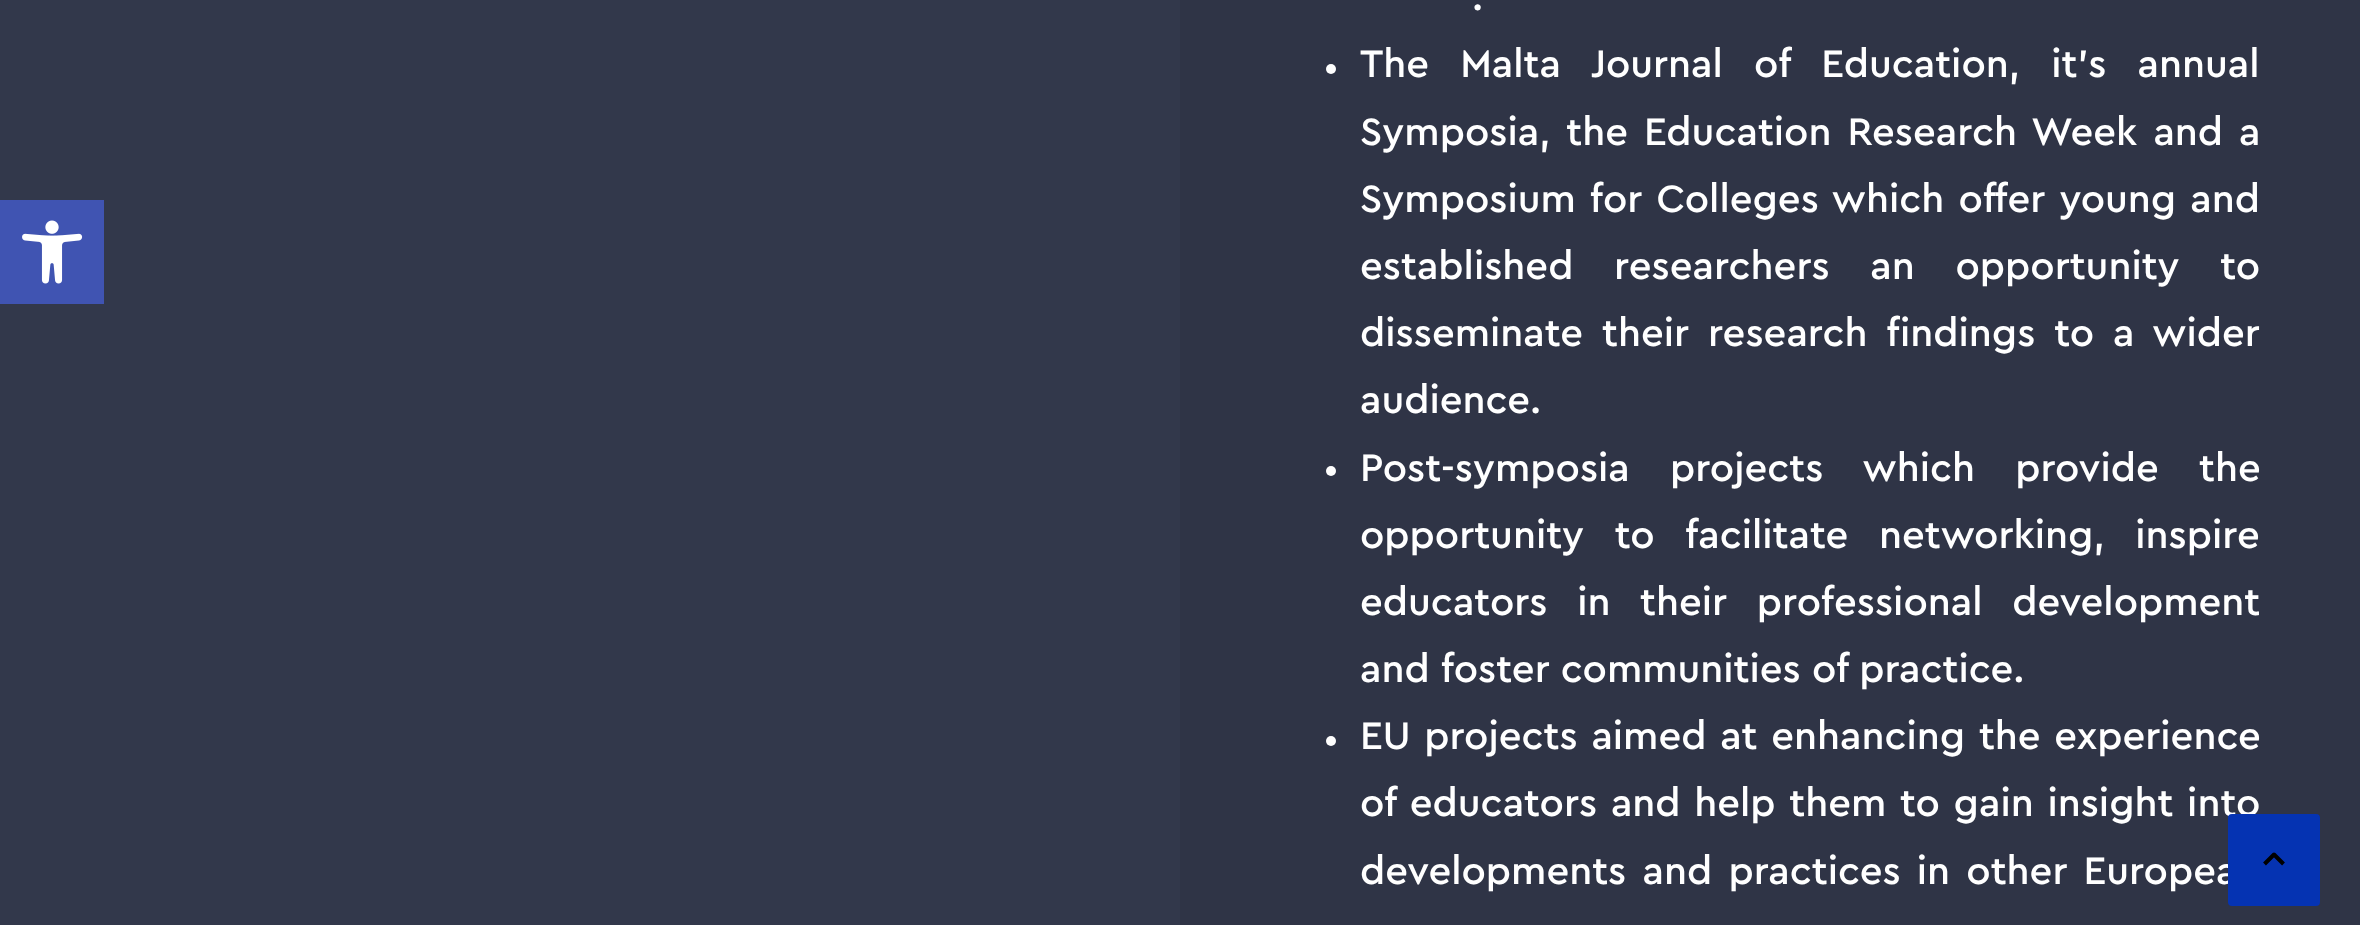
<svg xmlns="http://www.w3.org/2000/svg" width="2360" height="925">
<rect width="100%" height="100%" fill="#32384b"/>
<rect y="200" width="104" height="104" fill="#4054b2"/>
<image x="22" y="220" width="61" height="64" href="media/1.png"/>
<rect x="1180" width="1180" height="925" fill="#2f3446"/>
<text x="1472" y="10" style="font-family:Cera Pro;font-size:40px;font-weight:500;fill:#fff">.</text>
<circle cx="1331" cy="69" r="5" fill="#fff"/>
<text x="1360" y="77" word-spacing="20" style="font-family:Cera Pro;font-size:40px;font-weight:500;fill:#fff">The Malta Journal of Education, it’s annual</text>
<text x="1360" y="145" word-spacing="4.75" style="font-family:Cera Pro;font-size:40px;font-weight:500;fill:#fff">Symposia, the Education Research Week and a</text>
<text x="1360" y="212" word-spacing="3" style="font-family:Cera Pro;font-size:40px;font-weight:500;fill:#fff">Symposium for Colleges which offer young and</text>
<text x="1360" y="279" word-spacing="29.5" style="font-family:Cera Pro;font-size:40px;font-weight:500;fill:#fff">established researchers an opportunity to</text>
<text x="1360" y="346" word-spacing="7.75" style="font-family:Cera Pro;font-size:40px;font-weight:500;fill:#fff">disseminate their research findings to a wider</text>
<text x="1360" y="413" style="font-family:Cera Pro;font-size:40px;font-weight:500;fill:#fff">audience.</text>
<circle cx="1331" cy="471" r="5" fill="#fff"/>
<text x="1360" y="481" word-spacing="29" style="font-family:Cera Pro;font-size:40px;font-weight:500;fill:#fff">Post-symposia projects which provide the</text>
<text x="1360" y="548" word-spacing="19.5" style="font-family:Cera Pro;font-size:40px;font-weight:500;fill:#fff">opportunity to facilitate networking, inspire</text>
<text x="1360" y="615" word-spacing="18.5" style="font-family:Cera Pro;font-size:40px;font-weight:500;fill:#fff">educators in their professional development</text>
<text x="1360" y="682" style="font-family:Cera Pro;font-size:40px;font-weight:500;fill:#fff">and foster communities of practice.</text>
<circle cx="1331" cy="741" r="5" fill="#fff"/>
<text x="1360" y="749" word-spacing="2.5" style="font-family:Cera Pro;font-size:40px;font-weight:500;fill:#fff">EU projects aimed at enhancing the experience</text>
<text x="1360" y="816" word-spacing="2.5" style="font-family:Cera Pro;font-size:40px;font-weight:500;fill:#fff">of educators and help them to gain insight into</text>
<text x="1360" y="884" word-spacing="5" style="font-family:Cera Pro;font-size:40px;font-weight:500;fill:#fff">developments and practices in other Europea</text>
<rect x="2228" y="814" width="92" height="92" rx="4" fill="#0533b2"/>
<path d="M2264.5 864l9.5-9.5l9.5 9.5" fill="none" stroke="#000" stroke-width="4" stroke-linejoin="round"/>
</svg>
